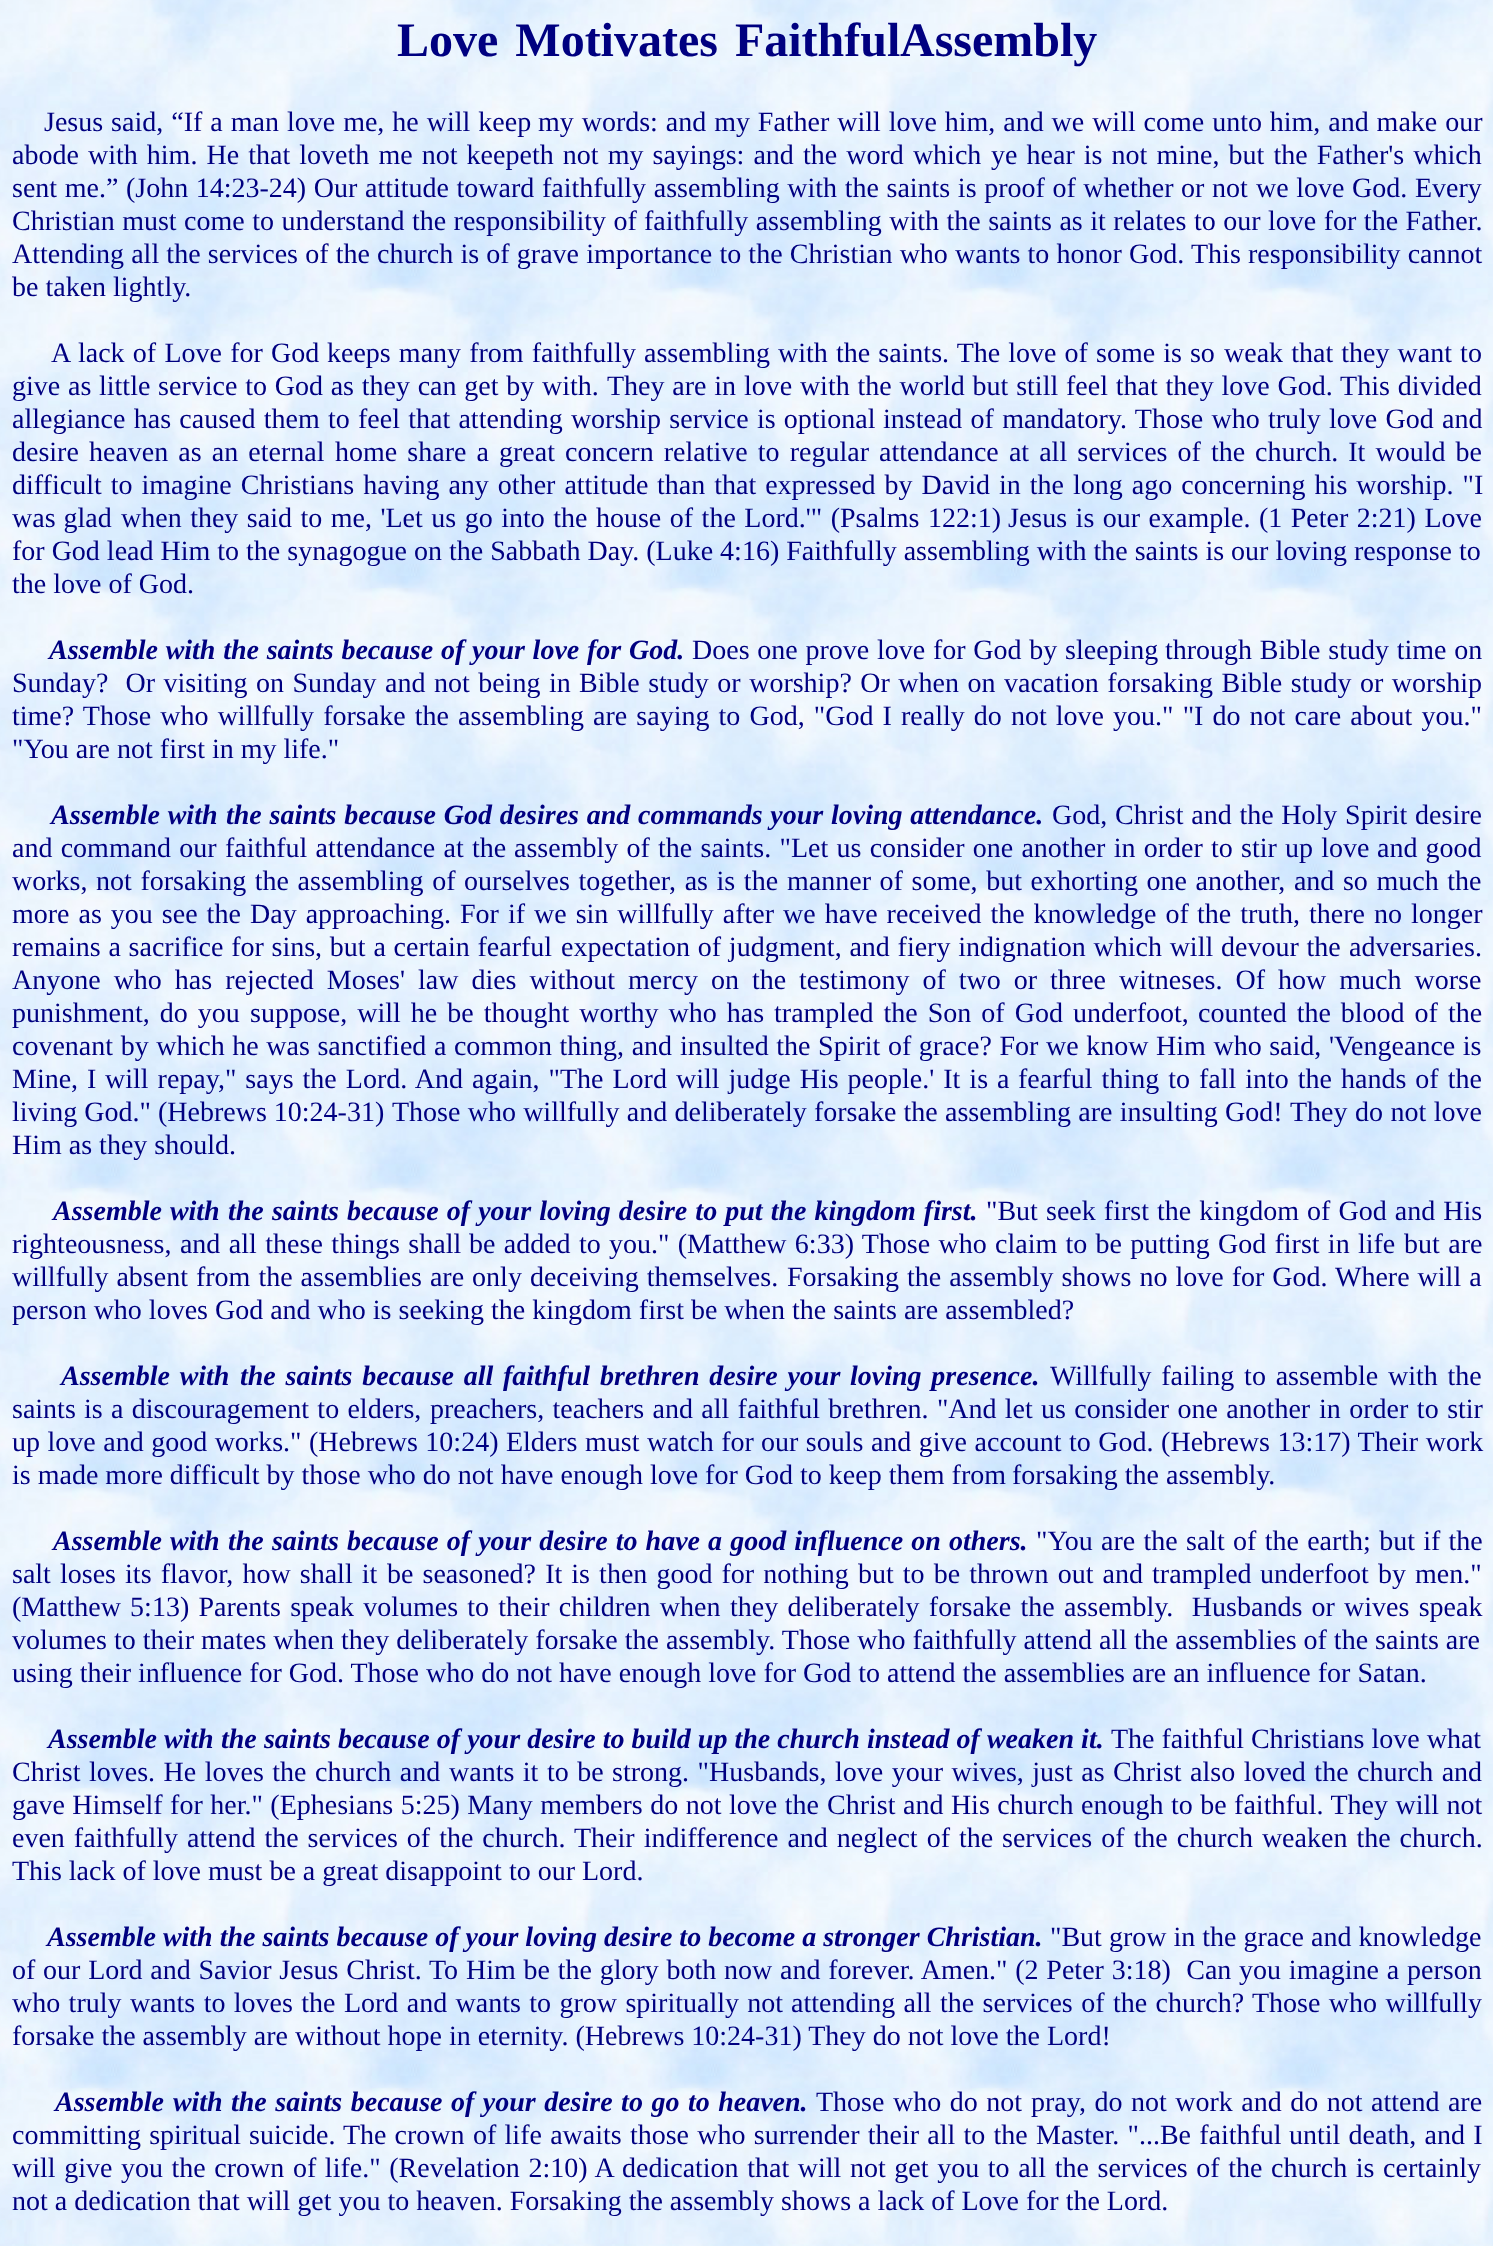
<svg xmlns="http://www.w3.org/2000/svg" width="1493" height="2246">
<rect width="100%" height="100%" fill="#fff"/>
<image x="0" y="0" width="1493" height="2246" href="media/1.png"/>
<text x="397" y="56" word-spacing="5" style="font-family:Liberation Serif;font-size:48px;font-weight:bold;fill:#000080">Love Motivates Faithful</text>
<text x="900" y="56" style="font-family:Liberation Serif;font-size:48px;font-weight:bold;fill:#000080">Assembly</text>
<text x="44" y="131" word-spacing="1" style="font-family:Liberation Serif;font-size:28px;fill:#000080">Jesus said, “If a man love me, he will keep</text>
<text x="538" y="131" word-spacing="0.9" style="font-family:Liberation Serif;font-size:28px;fill:#000080">my words: and my Father will love him, and we will come unto him, and make our</text>
<text x="12" y="164" word-spacing="2.1" style="font-family:Liberation Serif;font-size:28px;fill:#000080">abode with him. He that loveth me not keepeth not my sayings: and the word which</text>
<text x="991" y="164" word-spacing="2.1" style="font-family:Liberation Serif;font-size:28px;fill:#000080">ye hear is not mine, but the Father's which</text>
<text x="12" y="197" word-spacing="0.6" style="font-family:Liberation Serif;font-size:28px;fill:#000080">sent me.” (John 14:23-24) Our</text>
<text x="365" y="197" word-spacing="0.6" style="font-family:Liberation Serif;font-size:28px;fill:#000080">attitude toward faithfully assembling with the saints is proof of whether or not</text>
<text x="1256" y="197" word-spacing="0.6" style="font-family:Liberation Serif;font-size:28px;fill:#000080">we love God. Every</text>
<text x="12" y="230" word-spacing="0.5" style="font-family:Liberation Serif;font-size:28px;fill:#000080">Christian must come to understand the responsibility of</text>
<text x="644" y="230" word-spacing="0.5" style="font-family:Liberation Serif;font-size:28px;fill:#000080">faithfully assembling with the saints as it relates to our love for the Father.</text>
<text x="12" y="263" word-spacing="0.2" style="font-family:Liberation Serif;font-size:28px;fill:#000080">Attending all the services of the church is of grave importance to the Christian who wants to honor God. This responsibility cannot</text>
<text x="12" y="296" style="font-family:Liberation Serif;font-size:28px;fill:#000080">be taken lightly.</text>
<text x="51" y="362" word-spacing="1.25" style="font-family:Liberation Serif;font-size:28px;fill:#000080">A lack of Love for God</text>
<text x="327" y="362" word-spacing="1.1" style="font-family:Liberation Serif;font-size:28px;fill:#000080">keeps many from faithfully assembling with the saints. The love of some is so</text>
<text x="1224" y="362" word-spacing="1.1" style="font-family:Liberation Serif;font-size:28px;fill:#000080">weak that they want to</text>
<text x="12" y="395" word-spacing="0.75" style="font-family:Liberation Serif;font-size:28px;fill:#000080">give as little service to God as they can get by with.</text>
<text x="607" y="395" word-spacing="0.8" style="font-family:Liberation Serif;font-size:28px;fill:#000080">They are in love with the world but still feel that they love God. This divided</text>
<text x="12" y="428" word-spacing="1.25" style="font-family:Liberation Serif;font-size:28px;fill:#000080">allegiance has caused them to feel that attending worship service is optional</text>
<text x="883" y="428" word-spacing="1.25" style="font-family:Liberation Serif;font-size:28px;fill:#000080">instead of mandatory. Those who truly love God and</text>
<text x="12" y="461" word-spacing="3.1" style="font-family:Liberation Serif;font-size:28px;fill:#000080">desire heaven as an eternal</text>
<text x="335" y="461" word-spacing="3.1" style="font-family:Liberation Serif;font-size:28px;fill:#000080">home share a great concern relative to regular attendance at all services of the</text>
<text x="1255" y="461" word-spacing="3.1" style="font-family:Liberation Serif;font-size:28px;fill:#000080">church. It would be</text>
<text x="12" y="494" word-spacing="2" style="font-family:Liberation Serif;font-size:28px;fill:#000080">difficult to imagine Christians having any other attitude</text>
<text x="657" y="494" word-spacing="2" style="font-family:Liberation Serif;font-size:28px;fill:#000080">than that expressed by David in the long ago concerning his worship. "I</text>
<text x="12" y="527" word-spacing="1" style="font-family:Liberation Serif;font-size:28px;fill:#000080">was glad</text>
<text x="121" y="527" word-spacing="1.5" style="font-family:Liberation Serif;font-size:28px;fill:#000080">when they said to me, 'Let us go into the house of the Lord.'" (Psalms 122:1)</text>
<text x="1008" y="527" word-spacing="1.5" style="font-family:Liberation Serif;font-size:28px;fill:#000080">Jesus is our example. (1 Peter 2:21) Love</text>
<text x="12" y="560" style="font-family:Liberation Serif;font-size:28px;fill:#000080">for God lead Him to the synagogue on the Sabbath Day. (Luke 4:16) Faithfully assembling with the saints is our loving response to</text>
<text x="12" y="593" style="font-family:Liberation Serif;font-size:28px;fill:#000080">the love of God.</text>
<text x="49" y="659" word-spacing="0.75" style="font-family:Liberation Serif;font-size:28px;font-weight:bold;font-style:italic;fill:#000080">Assemble with the saints because of your love for God.</text>
<text x="692" y="659" word-spacing="0.75" style="font-family:Liberation Serif;font-size:28px;fill:#000080">Does one prove love for God by sleeping</text>
<text x="1165" y="659" word-spacing="0.75" style="font-family:Liberation Serif;font-size:28px;fill:#000080">through Bible study time on</text>
<text x="12" y="692" word-spacing="1.5" style="font-family:Liberation Serif;font-size:28px;fill:#000080" xml:space="preserve">Sunday?  Or visiting on Sunday and not being in</text>
<text x="579" y="692" word-spacing="1.5" style="font-family:Liberation Serif;font-size:28px;fill:#000080">Bible study or worship? Or when on vacation forsaking Bible study or worship</text>
<text x="12" y="725" word-spacing="2.1" style="font-family:Liberation Serif;font-size:28px;fill:#000080">time? Those who willfully forsake the assembling are saying to God, "God I</text>
<text x="901" y="725" word-spacing="2.1" style="font-family:Liberation Serif;font-size:28px;fill:#000080">really do not love you." "I do not care about you."</text>
<text x="12" y="758" style="font-family:Liberation Serif;font-size:28px;fill:#000080">"You are not first in my life."</text>
<text x="51" y="824" word-spacing="0.8" style="font-family:Liberation Serif;font-size:28px;font-weight:bold;font-style:italic;fill:#000080">Assemble with</text>
<text x="226" y="824" word-spacing="0.75" style="font-family:Liberation Serif;font-size:28px;font-weight:bold;font-style:italic;fill:#000080">the saints because God desires and commands your loving attendance.</text>
<text x="1052" y="824" style="font-family:Liberation Serif;font-size:28px;fill:#000080">God,</text>
<text x="1115" y="824" word-spacing="0.75" style="font-family:Liberation Serif;font-size:28px;fill:#000080">Christ and the Holy Spirit desire</text>
<text x="12" y="857" word-spacing="1.25" style="font-family:Liberation Serif;font-size:28px;fill:#000080">and command our faithful attendance at the</text>
<text x="514" y="857" word-spacing="1.25" style="font-family:Liberation Serif;font-size:28px;fill:#000080">assembly of the saints. "Let us consider one another in order to stir up love</text>
<text x="1377" y="857" word-spacing="1" style="font-family:Liberation Serif;font-size:28px;fill:#000080">and good</text>
<text x="12" y="890" word-spacing="1.6" style="font-family:Liberation Serif;font-size:28px;fill:#000080">works, not forsaking the assembling of ourselves together, as is the</text>
<text x="787" y="890" word-spacing="1.6" style="font-family:Liberation Serif;font-size:28px;fill:#000080">manner of some, but exhorting one another, and so much the</text>
<text x="12" y="923" word-spacing="2" style="font-family:Liberation Serif;font-size:28px;fill:#000080">more as you see the</text>
<text x="250" y="923" word-spacing="2" style="font-family:Liberation Serif;font-size:28px;fill:#000080">Day approaching. For if we sin willfully after we have received the knowledge of</text>
<text x="1197" y="923" word-spacing="2" style="font-family:Liberation Serif;font-size:28px;fill:#000080">the truth, there no longer</text>
<text x="12" y="956" word-spacing="0.75" style="font-family:Liberation Serif;font-size:28px;fill:#000080">remains a sacrifice for sins, but a certain fearful</text>
<text x="561" y="956" word-spacing="0.75" style="font-family:Liberation Serif;font-size:28px;fill:#000080">expectation of judgment, and fiery indignation which will devour the</text>
<text x="1349" y="956" style="font-family:Liberation Serif;font-size:28px;fill:#000080">adversaries.</text>
<text x="12" y="989" word-spacing="6" style="font-family:Liberation Serif;font-size:28px;fill:#000080">Anyone who has rejected Moses' law dies without mercy on the</text>
<text x="799" y="989" word-spacing="6" style="font-family:Liberation Serif;font-size:28px;fill:#000080">testimony of two or three witneses. Of how much worse</text>
<text x="12" y="1022" word-spacing="3" style="font-family:Liberation Serif;font-size:28px;fill:#000080">punishment, do you</text>
<text x="250" y="1022" word-spacing="3" style="font-family:Liberation Serif;font-size:28px;fill:#000080">suppose, will he be thought worthy who has trampled the Son of God underfoot,</text>
<text x="1198" y="1022" word-spacing="3" style="font-family:Liberation Serif;font-size:28px;fill:#000080">counted the blood of the</text>
<text x="12" y="1055" word-spacing="0.6" style="font-family:Liberation Serif;font-size:28px;fill:#000080">covenant by which he was sanctified a common thing, and</text>
<text x="680" y="1055" word-spacing="0.6" style="font-family:Liberation Serif;font-size:28px;fill:#000080">insulted the Spirit of grace? For we know Him who said, 'Vengeance is</text>
<text x="12" y="1088" word-spacing="2" style="font-family:Liberation Serif;font-size:28px;fill:#000080">Mine, I</text>
<text x="105" y="1088" word-spacing="2" style="font-family:Liberation Serif;font-size:28px;fill:#000080">will repay," says the Lord. And again, "The Lord will judge His people.' It is a</text>
<text x="1018" y="1088" word-spacing="2" style="font-family:Liberation Serif;font-size:28px;fill:#000080">fearful thing to fall into the hands of the</text>
<text x="12" y="1121" style="font-family:Liberation Serif;font-size:28px;fill:#000080">living God." (Hebrews 10:24-31)</text>
<text x="392" y="1121" word-spacing="0.25" style="font-family:Liberation Serif;font-size:28px;fill:#000080">Those who willfully and deliberately forsake the assembling are insulting God!</text>
<text x="1290" y="1121" word-spacing="0.5" style="font-family:Liberation Serif;font-size:28px;fill:#000080">They do not love</text>
<text x="12" y="1154" style="font-family:Liberation Serif;font-size:28px;fill:#000080">Him as they should.</text>
<text x="53" y="1220" word-spacing="1" style="font-family:Liberation Serif;font-size:28px;font-weight:bold;font-style:italic;fill:#000080">Assemble with</text>
<text x="228" y="1220" word-spacing="1.1" style="font-family:Liberation Serif;font-size:28px;font-weight:bold;font-style:italic;fill:#000080">the saints because of your loving desire to put the kingdom first.</text>
<text x="986" y="1220" style="font-family:Liberation Serif;font-size:28px;fill:#000080">"But</text>
<text x="1046" y="1220" word-spacing="1.1" style="font-family:Liberation Serif;font-size:28px;fill:#000080">seek first the kingdom of God and His</text>
<text x="12" y="1253" word-spacing="1.5" style="font-family:Liberation Serif;font-size:28px;fill:#000080">righteousness, and all these things shall</text>
<text x="469" y="1253" word-spacing="1.3" style="font-family:Liberation Serif;font-size:28px;fill:#000080">be added to you." (Matthew 6:33) Those who claim to be putting God first in life</text>
<text x="1404" y="1253" word-spacing="1.5" style="font-family:Liberation Serif;font-size:28px;fill:#000080">but are</text>
<text x="12" y="1286" word-spacing="1" style="font-family:Liberation Serif;font-size:28px;fill:#000080">willfully absent from the assemblies are only deceiving themselves.</text>
<text x="787" y="1286" word-spacing="1" style="font-family:Liberation Serif;font-size:28px;fill:#000080">Forsaking the assembly shows no love for God. Where will a</text>
<text x="12" y="1319" style="font-family:Liberation Serif;font-size:28px;fill:#000080">person who loves God and who is seeking the kingdom first be when the saints are assembled?</text>
<text x="61" y="1385" word-spacing="2.75" style="font-family:Liberation Serif;font-size:28px;font-weight:bold;font-style:italic;fill:#000080">Assemble with</text>
<text x="240" y="1385" word-spacing="2.75" style="font-family:Liberation Serif;font-size:28px;font-weight:bold;font-style:italic;fill:#000080">the saints because all faithful brethren desire your loving presence.</text>
<text x="1050" y="1385" word-spacing="2.75" style="font-family:Liberation Serif;font-size:28px;fill:#000080">Willfully failing to assemble with the</text>
<text x="12" y="1418" word-spacing="1.3" style="font-family:Liberation Serif;font-size:28px;fill:#000080">saints is a discouragement to elders,</text>
<text x="430" y="1418" word-spacing="1.3" style="font-family:Liberation Serif;font-size:28px;fill:#000080">preachers, teachers and all faithful brethren. "And let us consider one another</text>
<text x="1319" y="1418" word-spacing="1.5" style="font-family:Liberation Serif;font-size:28px;fill:#000080">in order to stir</text>
<text x="12" y="1451" word-spacing="0.5" style="font-family:Liberation Serif;font-size:28px;fill:#000080">up love and good works." (Hebrews 10:24) Elders must watch for</text>
<text x="761" y="1451" word-spacing="0.5" style="font-family:Liberation Serif;font-size:28px;fill:#000080">our souls and give account to God. (Hebrews 13:17) Their work</text>
<text x="12" y="1484" style="font-family:Liberation Serif;font-size:28px;fill:#000080">is made more difficult by those who do not have enough love for God to keep them from</text>
<text x="1012" y="1484" style="font-family:Liberation Serif;font-size:28px;fill:#000080">forsaking the assembly.</text>
<text x="53" y="1550" word-spacing="1" style="font-family:Liberation Serif;font-size:28px;font-weight:bold;font-style:italic;fill:#000080">Assemble with</text>
<text x="228" y="1550" word-spacing="1.1" style="font-family:Liberation Serif;font-size:28px;font-weight:bold;font-style:italic;fill:#000080">the saints because of your desire to have a good influence on others.</text>
<text x="1036" y="1550" word-spacing="1.25" style="font-family:Liberation Serif;font-size:28px;fill:#000080">"You are the salt of the earth; but if the</text>
<text x="12" y="1583" word-spacing="2.1" style="font-family:Liberation Serif;font-size:28px;fill:#000080">salt loses its flavor, how shall it</text>
<text x="387" y="1583" word-spacing="2.1" style="font-family:Liberation Serif;font-size:28px;fill:#000080">be seasoned? It is then good for nothing but to be thrown out and trampled</text>
<text x="1260" y="1583" word-spacing="2.1" style="font-family:Liberation Serif;font-size:28px;fill:#000080">underfoot by men."</text>
<text x="12" y="1616" word-spacing="2.25" style="font-family:Liberation Serif;font-size:28px;fill:#000080">(Matthew 5:13) Parents speak volumes to their children when</text>
<text x="730" y="1616" word-spacing="2.25" style="font-family:Liberation Serif;font-size:28px;fill:#000080" xml:space="preserve">they deliberately forsake the assembly.  Husbands or wives speak</text>
<text x="12" y="1649" style="font-family:Liberation Serif;font-size:28px;fill:#000080">volumes to their mates when they deliberately forsake the assembly. Those who faithfully attend all the assemblies of the saints are</text>
<text x="12" y="1682" style="font-family:Liberation Serif;font-size:28px;fill:#000080">using their influence for God. Those who do not have enough love for God to attend the assemblies are an influence for Satan.</text>
<text x="48" y="1748" style="font-family:Liberation Serif;font-size:28px;font-weight:bold;font-style:italic;fill:#000080">Assemble with</text>
<text x="221" y="1748" word-spacing="0.1" style="font-family:Liberation Serif;font-size:28px;font-weight:bold;font-style:italic;fill:#000080">the saints because of your desire to build up the church instead of weaken it.</text>
<text x="1111" y="1748" style="font-family:Liberation Serif;font-size:28px;fill:#000080">The faithful Christians love what</text>
<text x="12" y="1781" word-spacing="1.5" style="font-family:Liberation Serif;font-size:28px;fill:#000080">Christ loves. He loves the church and</text>
<text x="449" y="1781" word-spacing="1.5" style="font-family:Liberation Serif;font-size:28px;fill:#000080">wants it to be strong. "Husbands, love your wives, just as Christ also loved the</text>
<text x="1357" y="1781" word-spacing="1.5" style="font-family:Liberation Serif;font-size:28px;fill:#000080">church and</text>
<text x="12" y="1814" word-spacing="0.5" style="font-family:Liberation Serif;font-size:28px;fill:#000080">gave Himself for her." (Ephesians 5:25) Many members do not love the</text>
<text x="827" y="1814" word-spacing="0.5" style="font-family:Liberation Serif;font-size:28px;fill:#000080">Christ and His church enough to be faithful. They will not</text>
<text x="12" y="1847" word-spacing="2" style="font-family:Liberation Serif;font-size:28px;fill:#000080">even faithfully</text>
<text x="187" y="1847" word-spacing="2" style="font-family:Liberation Serif;font-size:28px;fill:#000080">attend the services of the church. Their indifference and neglect of the</text>
<text x="1002" y="1847" word-spacing="2" style="font-family:Liberation Serif;font-size:28px;fill:#000080">services of the church weaken the church.</text>
<text x="12" y="1880" style="font-family:Liberation Serif;font-size:28px;fill:#000080">This lack of love must be a great disappoint to our Lord.</text>
<text x="47" y="1946" style="font-family:Liberation Serif;font-size:28px;font-weight:bold;font-style:italic;fill:#000080">Assemble with the saints because of your loving desire to become a stronger Christian.</text>
<text x="1050" y="1946" style="font-family:Liberation Serif;font-size:28px;fill:#000080">"But grow in the grace and knowledge</text>
<text x="12" y="1979" word-spacing="0.75" style="font-family:Liberation Serif;font-size:28px;fill:#000080">of our Lord and Savior Jesus Christ. To</text>
<text x="466" y="1979" word-spacing="0.75" style="font-family:Liberation Serif;font-size:28px;fill:#000080" xml:space="preserve">Him be the glory both now and forever. Amen." (2 Peter 3:18)  Can you imagine a</text>
<text x="1407" y="1979" style="font-family:Liberation Serif;font-size:28px;fill:#000080">person</text>
<text x="12" y="2012" word-spacing="1.4" style="font-family:Liberation Serif;font-size:28px;fill:#000080">who truly wants to loves the Lord and wants to grow spiritually not</text>
<text x="791" y="2012" word-spacing="1.4" style="font-family:Liberation Serif;font-size:28px;fill:#000080">attending all the services of the church? Those who willfully</text>
<text x="12" y="2045" style="font-family:Liberation Serif;font-size:28px;fill:#000080">forsake the assembly are without hope in eternity. (Hebrews 10:24-31) They do not love the Lord!</text>
<text x="55" y="2111" word-spacing="2" style="font-family:Liberation Serif;font-size:28px;font-weight:bold;font-style:italic;fill:#000080">Assemble with</text>
<text x="231" y="2111" word-spacing="1.5" style="font-family:Liberation Serif;font-size:28px;font-weight:bold;font-style:italic;fill:#000080">the saints because of your desire to go to heaven.</text>
<text x="816" y="2111" word-spacing="1.5" style="font-family:Liberation Serif;font-size:28px;fill:#000080">Those who do not</text>
<text x="1031" y="2111" word-spacing="1.5" style="font-family:Liberation Serif;font-size:28px;fill:#000080">pray, do not work and do not attend are</text>
<text x="12" y="2144" word-spacing="1.1" style="font-family:Liberation Serif;font-size:28px;fill:#000080">committing spiritual suicide. The crown</text>
<text x="473" y="2144" word-spacing="1.25" style="font-family:Liberation Serif;font-size:28px;fill:#000080">of life awaits those who surrender their all to the Master. "...Be faithful</text>
<text x="1289" y="2144" word-spacing="1.25" style="font-family:Liberation Serif;font-size:28px;fill:#000080">until death, and I</text>
<text x="12" y="2177" word-spacing="1.6" style="font-family:Liberation Serif;font-size:28px;fill:#000080">will give you the crown of life." (Revelation 2:10) A</text>
<text x="622" y="2177" word-spacing="1.6" style="font-family:Liberation Serif;font-size:28px;fill:#000080">dedication that will not get you to all the services of the church is certainly</text>
<text x="12" y="2210" style="font-family:Liberation Serif;font-size:28px;fill:#000080">not a dedication that will get you to heaven. Forsaking the assembly shows a lack of Love for the Lord.</text>
</svg>
